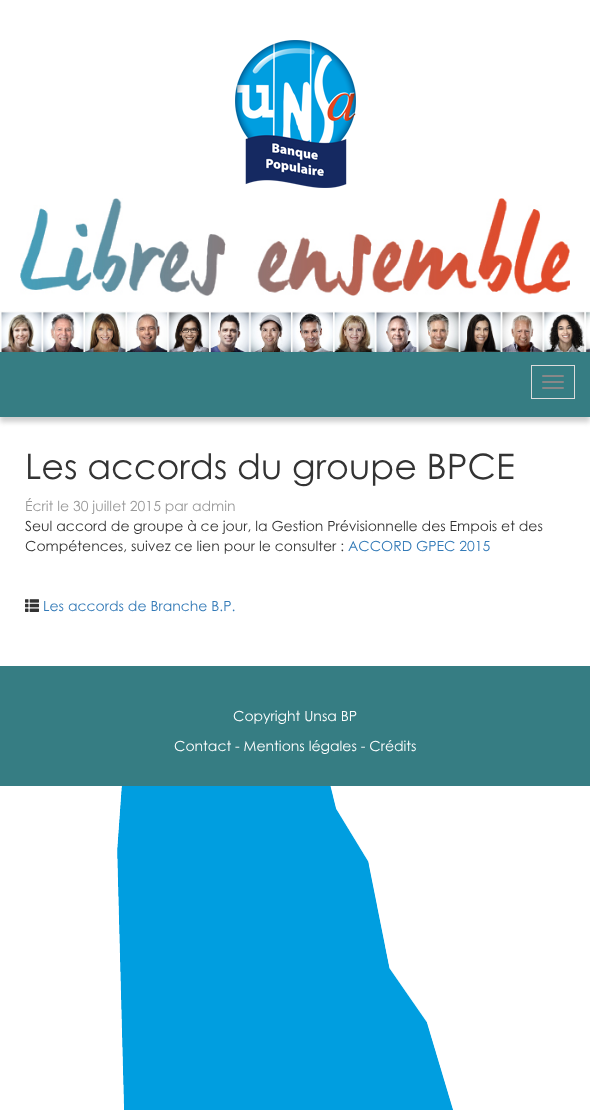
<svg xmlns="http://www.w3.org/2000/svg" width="590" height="1110">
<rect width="100%" height="100%" fill="#fff"/>
<image x="0" y="786" width="590" height="324" href="media/1.png"/>
<image x="235" y="40" width="121" height="148" href="media/2.png"/>
<image x="20" y="198" width="550" height="98" href="media/3.png"/>
<image x="0" y="311" width="590" height="41" href="media/4.png"/>
<rect y="357" width="590" height="65" fill="#cfcfcf" filter="blur(2.5px)"/>
<rect y="352" width="590" height="65" fill="#367d83"/>
<rect x="531.5" y="365.5" width="43" height="33" fill="none" stroke="#ddd"/>
<rect x="542" y="375" width="22" height="2" rx="1" fill="#888"/>
<rect x="542" y="381" width="22" height="2" rx="1" fill="#888"/>
<rect x="542" y="387" width="22" height="2" rx="1" fill="#888"/>
<text x="25" y="479" style="font-family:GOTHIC;font-size:35px;fill:#333">Les accords du groupe BPCE</text>
<text x="25" y="511" style="font-family:GOTHIC;font-size:14px;fill:#999">Écrit le 30 juillet 2015 par admin</text>
<text x="25" y="531" style="font-family:GOTHIC;font-size:14px;fill:#333">Seul accord de groupe à ce jour, la Gestion Prévisionnelle des Empois et des</text>
<text x="25" y="551" style="font-family:GOTHIC;font-size:14px;fill:#333">Compétences, suivez ce lien pour le consulter :</text>
<text x="348" y="551" style="font-family:GOTHIC;font-size:14px;fill:#337ab7">ACCORD GPEC 2015</text>
<image x="25" y="599" width="14" height="13" href="media/5.png"/>
<text x="43" y="611" style="font-family:GOTHIC;font-size:14px;fill:#337ab7">Les accords de Branche B.P.</text>
<rect y="666" width="590" height="120" fill="#367d83"/>
<text x="233" y="721" style="font-family:GOTHIC;font-size:14px;fill:#fff">Copyright Unsa BP</text>
<text x="174" y="751" style="font-family:GOTHIC;font-size:14px;fill:#fff">Contact - Mentions légales - Crédits</text>
</svg>
